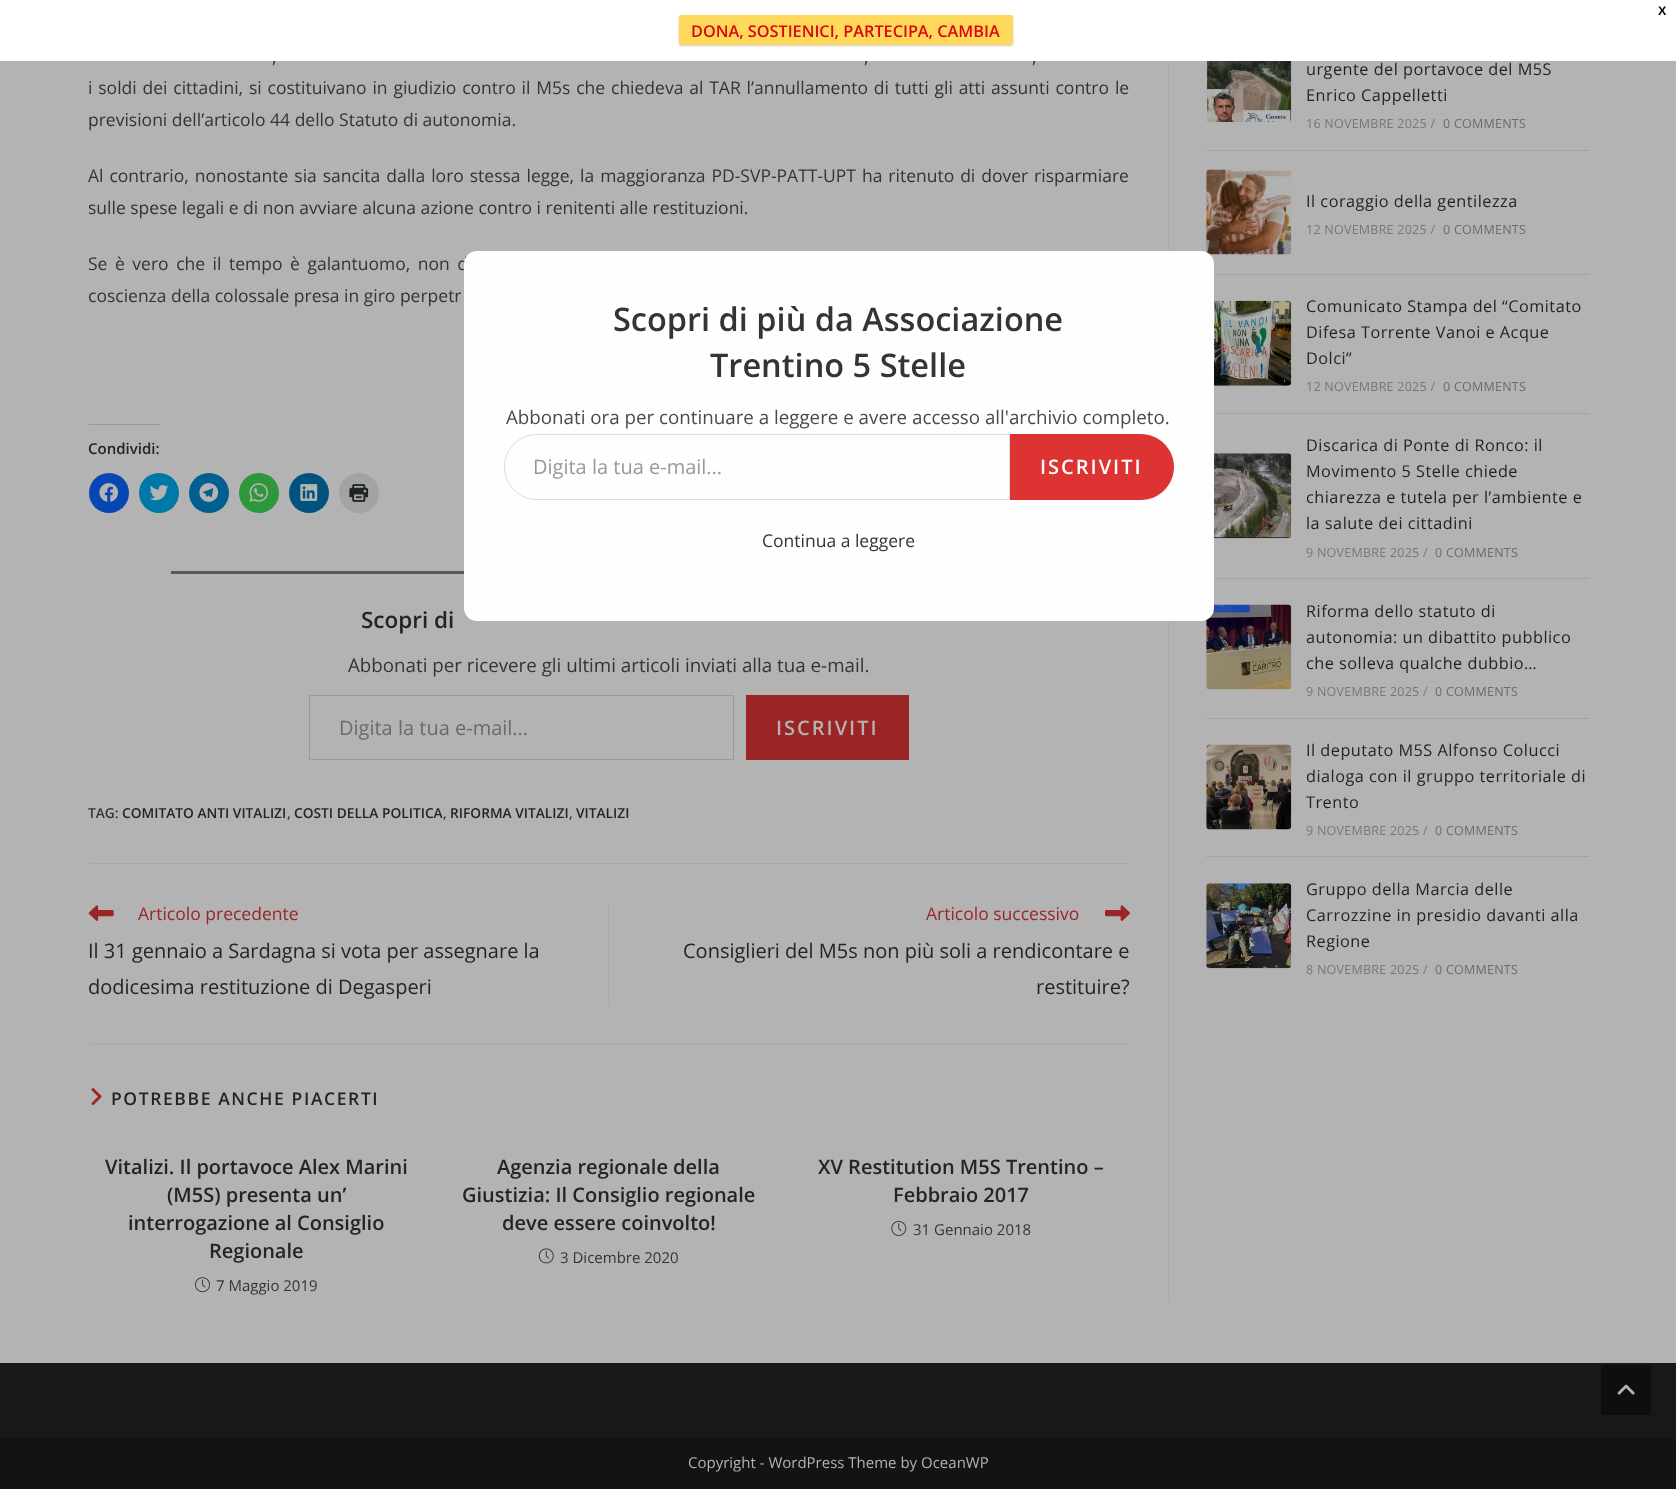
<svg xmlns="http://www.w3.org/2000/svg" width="1676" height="1489">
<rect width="100%" height="100%" fill="#b3b3b3"/>
<text x="272" y="63" style="font-family:Open Sans;font-size:17.5px;fill:#343434">,</text>
<text x="864" y="63" style="font-family:Open Sans;font-size:17.5px;fill:#343434">,</text>
<text x="1032" y="63" style="font-family:Open Sans;font-size:17.5px;fill:#343434">,</text>
<rect width="1676" height="61" fill="#fff"/>
<text x="1658" y="15" style="font-family:Liberation Sans;font-size:12.5px;font-weight:bold;fill:#000">X</text>
<rect x="679" y="16" width="334" height="30" rx="2.5" fill="#00000033" filter="blur(1px)"/>
<rect x="679" y="15" width="334" height="30" rx="2.5" fill="#ffd95c"/>
<text x="691" y="37" style="font-family:Open Sans;font-size:16.25px;font-weight:600;fill:#df040c">DONA, SOSTIENICI, PARTECIPA, CAMBIA</text>
<rect x="1168" y="61" width="1" height="1239" fill="#a9a9a9"/>
<text x="88" y="94" word-spacing="1.3" style="font-family:Open Sans;font-size:17.5px;fill:#343434">i soldi dei cittadini, si costituivano in giudizio contro il M5s che chiedeva al TAR l’annullamento di tutti gli atti assunti contro le</text>
<text x="88" y="126" style="font-family:Open Sans;font-size:17.5px;fill:#343434">previsioni dell’articolo 44 dello Statuto di autonomia.</text>
<text x="88" y="182" word-spacing="1.4" style="font-family:Open Sans;font-size:17.5px;fill:#343434">Al contrario, nonostante sia sancita dalla loro stessa legge, la maggioranza PD-SVP-PATT-UPT ha ritenuto di dover risparmiare</text>
<text x="88" y="214" style="font-family:Open Sans;font-size:17.5px;fill:#343434">sulle spese legali e di non avviare alcuna azione contro i renitenti alle restituzioni.</text>
<text x="88" y="270" word-spacing="3" style="font-family:Open Sans;font-size:17.5px;fill:#343434">Se è vero che il tempo è galantuomo, non d</text>
<text x="88" y="302" style="font-family:Open Sans;font-size:17.5px;fill:#343434">coscienza della colossale presa in giro perpetr</text>
<rect x="89" y="424" width="71" height="1" fill="#9a9a9b"/>
<text x="88" y="454" style="font-family:Open Sans;font-size:15px;font-weight:600;fill:#242424">Condividi:</text>
<circle cx="109" cy="493" r="20" fill="#0647b3"/>
<image x="99" y="483" width="20" height="19" href="media/1.png"/>
<circle cx="159" cy="493" r="20" fill="#0078a7"/>
<image x="149" y="485" width="20" height="16" href="media/2.png"/>
<circle cx="209" cy="493" r="20" fill="#005f8f"/>
<image x="199" y="483" width="20" height="19" href="media/3.png"/>
<circle cx="259" cy="493" r="20" fill="#2f973b"/>
<image x="249" y="483" width="20" height="19" href="media/4.png"/>
<circle cx="309" cy="493" r="20" fill="#00537f"/>
<image x="300" y="484" width="18" height="17" href="media/5.png"/>
<circle cx="359" cy="493" r="20" fill="#a3a3a3"/>
<image x="349" y="484" width="20" height="18" href="media/6.png"/>
<rect x="171" y="571" width="293" height="3" fill="#5a5a5a"/>
<text x="361" y="628" style="font-family:Open Sans;font-size:22.5px;font-weight:600;fill:#242424">Scopri di</text>
<text x="348" y="672" style="font-family:Open Sans;font-size:18.75px;fill:#343434">Abbonati per ricevere gli ultimi articoli inviati alla tua e-mail.</text>
<rect x="309.5" y="695.5" width="424" height="64" fill="none" stroke="#9b9b9b"/>
<text x="339" y="735" style="font-family:Open Sans;font-size:20px;fill:#6b6b6b">Digita la tua e-mail...</text>
<rect x="746" y="695" width="163" height="65" fill="#9b2424"/>
<text x="776" y="735" style="font-family:Open Sans;font-size:20px;font-weight:600;letter-spacing:2px;fill:#b3b3b3">ISCRIVITI</text>
<text x="88" y="818" style="font-family:Open Sans;font-size:13.75px;font-weight:600;fill:#343434">TAG:</text>
<text x="122" y="818" style="font-family:Open Sans;font-size:13.75px;font-weight:600;fill:#242424">COMITATO ANTI VITALIZI</text>
<text x="287" y="818" style="font-family:Open Sans;font-size:13.75px;font-weight:600;fill:#343434">,</text>
<text x="294" y="818" style="font-family:Open Sans;font-size:13.75px;font-weight:600;fill:#242424">COSTI DELLA POLITICA</text>
<text x="443" y="818" style="font-family:Open Sans;font-size:13.75px;font-weight:600;fill:#343434">,</text>
<text x="450" y="818" style="font-family:Open Sans;font-size:13.75px;font-weight:600;fill:#242424">RIFORMA VITALIZI</text>
<text x="569" y="818" style="font-family:Open Sans;font-size:13.75px;font-weight:600;fill:#343434">,</text>
<text x="576" y="818" style="font-family:Open Sans;font-size:13.75px;font-weight:600;fill:#242424">VITALIZI</text>
<rect x="89" y="863" width="1041" height="1" fill="#a9a9a9"/>
<rect x="608" y="901" width="1" height="104" fill="#a9a9a9"/>
<image x="88" y="905" width="26" height="16" href="media/7.png"/>
<text x="138" y="920" style="font-family:Open Sans;font-size:17.5px;fill:#9b2424">Articolo precedente</text>
<text x="88" y="958" style="font-family:Open Sans;font-size:20px;fill:#242424">Il 31 gennaio a Sardagna si vota per assegnare la</text>
<text x="88" y="994" style="font-family:Open Sans;font-size:20px;fill:#242424">dodicesima restituzione di Degasperi</text>
<text x="926" y="920" style="font-family:Open Sans;font-size:17.5px;fill:#9b2424">Articolo successivo</text>
<image x="1105" y="905" width="25" height="16" href="media/8.png"/>
<text x="683" y="958" style="font-family:Open Sans;font-size:20px;fill:#242424">Consiglieri del M5s non più soli a rendicontare e</text>
<text x="1036" y="994" style="font-family:Open Sans;font-size:20px;fill:#242424">restituire?</text>
<rect x="89" y="1043" width="1041" height="1" fill="#a9a9a9"/>
<image x="91" y="1088" width="11" height="17" href="media/9.png"/>
<text x="111" y="1105" style="font-family:Open Sans;font-size:17.5px;font-weight:600;letter-spacing:1.6px;fill:#242424">POTREBBE ANCHE PIACERTI</text>
<text x="105" y="1174" style="font-family:Open Sans;font-size:20px;font-weight:600;fill:#242424">Vitalizi. Il portavoce Alex Marini</text>
<text x="167" y="1202" style="font-family:Open Sans;font-size:20px;font-weight:600;fill:#242424">(M5S) presenta un’</text>
<text x="128" y="1230" style="font-family:Open Sans;font-size:20px;font-weight:600;fill:#242424">interrogazione al Consiglio</text>
<text x="209" y="1258" style="font-family:Open Sans;font-size:20px;font-weight:600;fill:#242424">Regionale</text>
<image x="195" y="1277" width="15" height="16" href="media/10.png"/>
<text x="216" y="1291" style="font-family:Open Sans;font-size:15px;fill:#343434">7 Maggio 2019</text>
<text x="497" y="1174" style="font-family:Open Sans;font-size:20px;font-weight:600;fill:#242424">Agenzia regionale della</text>
<text x="462" y="1202" style="font-family:Open Sans;font-size:20px;font-weight:600;fill:#242424">Giustizia: Il Consiglio regionale</text>
<text x="502" y="1230" style="font-family:Open Sans;font-size:20px;font-weight:600;fill:#242424">deve essere coinvolto!</text>
<image x="538" y="1248" width="16" height="16" href="media/11.png"/>
<text x="560" y="1263" style="font-family:Open Sans;font-size:15px;fill:#343434">3 Dicembre 2020</text>
<text x="818" y="1174" style="font-family:Open Sans;font-size:20px;font-weight:600;fill:#242424">XV Restitution M5S Trentino –</text>
<text x="893" y="1202" style="font-family:Open Sans;font-size:20px;font-weight:600;fill:#242424">Febbraio 2017</text>
<image x="891" y="1220" width="16" height="16" href="media/12.png"/>
<text x="913" y="1235" style="font-family:Open Sans;font-size:15px;fill:#343434">31 Gennaio 2018</text>
<image x="1206" y="61" width="86" height="61" href="media/13.png"/>
<text x="1306" y="75" style="font-family:Open Sans;font-size:16.25px;letter-spacing:0.5px;fill:#242424">urgente del portavoce del M5S</text>
<text x="1306" y="101" style="font-family:Open Sans;font-size:16.25px;letter-spacing:0.5px;fill:#242424">Enrico Cappelletti</text>
<text x="1306" y="128" style="font-family:Open Sans;font-size:12.5px;letter-spacing:0.25px;fill:#777">16 NOVEMBRE 2025 /</text>
<text x="1443" y="128" style="font-family:Open Sans;font-size:12.5px;letter-spacing:0.25px;fill:#6b6b6b">0 COMMENTS</text>
<rect x="1206" y="150" width="383" height="1" fill="#a3a3a3"/>
<image x="1206" y="169" width="86" height="86" href="media/14.png"/>
<text x="1306" y="207" style="font-family:Open Sans;font-size:16.25px;letter-spacing:0.5px;fill:#242424">Il coraggio della gentilezza</text>
<text x="1306" y="234" style="font-family:Open Sans;font-size:12.5px;letter-spacing:0.25px;fill:#777">12 NOVEMBRE 2025 /</text>
<text x="1443" y="234" style="font-family:Open Sans;font-size:12.5px;letter-spacing:0.25px;fill:#6b6b6b">0 COMMENTS</text>
<rect x="1206" y="274" width="383" height="1" fill="#a3a3a3"/>
<image x="1214" y="300" width="78" height="86" href="media/15.png"/>
<text x="1306" y="312" style="font-family:Open Sans;font-size:16.25px;letter-spacing:0.5px;fill:#242424">Comunicato Stampa del “Comitato</text>
<text x="1306" y="338" style="font-family:Open Sans;font-size:16.25px;letter-spacing:0.5px;fill:#242424">Difesa Torrente Vanoi e Acque</text>
<text x="1306" y="364" style="font-family:Open Sans;font-size:16.25px;letter-spacing:0.5px;fill:#242424">Dolci”</text>
<text x="1306" y="391" style="font-family:Open Sans;font-size:12.5px;letter-spacing:0.25px;fill:#777">12 NOVEMBRE 2025 /</text>
<text x="1443" y="391" style="font-family:Open Sans;font-size:12.5px;letter-spacing:0.25px;fill:#6b6b6b">0 COMMENTS</text>
<rect x="1206" y="413" width="383" height="1" fill="#a3a3a3"/>
<image x="1214" y="453" width="78" height="86" href="media/16.png"/>
<text x="1306" y="451" style="font-family:Open Sans;font-size:16.25px;letter-spacing:0.5px;fill:#242424">Discarica di Ponte di Ronco: il</text>
<text x="1306" y="477" style="font-family:Open Sans;font-size:16.25px;letter-spacing:0.5px;fill:#242424">Movimento 5 Stelle chiede</text>
<text x="1306" y="503" style="font-family:Open Sans;font-size:16.25px;letter-spacing:0.5px;fill:#242424">chiarezza e tutela per l’ambiente e</text>
<text x="1306" y="529" style="font-family:Open Sans;font-size:16.25px;letter-spacing:0.5px;fill:#242424">la salute dei cittadini</text>
<text x="1306" y="557" style="font-family:Open Sans;font-size:12.5px;letter-spacing:0.25px;fill:#777">9 NOVEMBRE 2025 /</text>
<text x="1435" y="557" style="font-family:Open Sans;font-size:12.5px;letter-spacing:0.25px;fill:#6b6b6b">0 COMMENTS</text>
<rect x="1206" y="578" width="383" height="1" fill="#a3a3a3"/>
<image x="1206" y="604" width="86" height="86" href="media/17.png"/>
<text x="1306" y="617" style="font-family:Open Sans;font-size:16.25px;letter-spacing:0.5px;fill:#242424">Riforma dello statuto di</text>
<text x="1306" y="643" style="font-family:Open Sans;font-size:16.25px;letter-spacing:0.5px;fill:#242424">autonomia: un dibattito pubblico</text>
<text x="1306" y="669" style="font-family:Open Sans;font-size:16.25px;letter-spacing:0.5px;fill:#242424">che solleva qualche dubbio…</text>
<text x="1306" y="696" style="font-family:Open Sans;font-size:12.5px;letter-spacing:0.25px;fill:#777">9 NOVEMBRE 2025 /</text>
<text x="1435" y="696" style="font-family:Open Sans;font-size:12.5px;letter-spacing:0.25px;fill:#6b6b6b">0 COMMENTS</text>
<rect x="1206" y="718" width="383" height="1" fill="#a3a3a3"/>
<image x="1206" y="744" width="86" height="86" href="media/18.png"/>
<text x="1306" y="756" style="font-family:Open Sans;font-size:16.25px;letter-spacing:0.5px;fill:#242424">Il deputato M5S Alfonso Colucci</text>
<text x="1306" y="782" style="font-family:Open Sans;font-size:16.25px;letter-spacing:0.5px;fill:#242424">dialoga con il gruppo territoriale di</text>
<text x="1306" y="808" style="font-family:Open Sans;font-size:16.25px;letter-spacing:0.5px;fill:#242424">Trento</text>
<text x="1306" y="835" style="font-family:Open Sans;font-size:12.5px;letter-spacing:0.25px;fill:#777">9 NOVEMBRE 2025 /</text>
<text x="1435" y="835" style="font-family:Open Sans;font-size:12.5px;letter-spacing:0.25px;fill:#6b6b6b">0 COMMENTS</text>
<rect x="1206" y="856" width="383" height="1" fill="#a3a3a3"/>
<image x="1206" y="883" width="86" height="86" href="media/19.png"/>
<text x="1306" y="895" style="font-family:Open Sans;font-size:16.25px;letter-spacing:0.5px;fill:#242424">Gruppo della Marcia delle</text>
<text x="1306" y="921" style="font-family:Open Sans;font-size:16.25px;letter-spacing:0.5px;fill:#242424">Carrozzine in presidio davanti alla</text>
<text x="1306" y="947" style="font-family:Open Sans;font-size:16.25px;letter-spacing:0.5px;fill:#242424">Regione</text>
<text x="1306" y="974" style="font-family:Open Sans;font-size:12.5px;letter-spacing:0.25px;fill:#777">8 NOVEMBRE 2025 /</text>
<text x="1435" y="974" style="font-family:Open Sans;font-size:12.5px;letter-spacing:0.25px;fill:#6b6b6b">0 COMMENTS</text>
<rect y="1363" width="1676" height="75" fill="#181818"/>
<rect y="1438" width="1676" height="51" fill="#131313"/>
<text x="688" y="1468" style="font-family:Open Sans;font-size:15px;fill:#b3b3b3">Copyright - WordPress Theme by OceanWP</text>
<rect x="464" y="251" width="750" height="370" rx="13" fill="#fefefe"/>
<text x="613" y="331" style="font-family:Open Sans;font-size:32.5px;font-weight:600;fill:#343434">Scopri di più da Associazione</text>
<text x="710" y="377" style="font-family:Open Sans;font-size:32.5px;font-weight:600;fill:#343434">Trentino 5 Stelle</text>
<text x="506" y="424" style="font-family:Open Sans;font-size:18.75px;fill:#4a4a4a">Abbonati ora per continuare a leggere e avere accesso all'archivio completo.</text>
<path d="M537 434.5h472.5v65h-472.5c-18 0-32.5-14.5-32.5-32.5c0-18 14.5-32.5 32.5-32.5z" fill="none" stroke="#ddd"/>
<text x="533" y="474" style="font-family:Open Sans;font-size:20px;fill:#999">Digita la tua e-mail...</text>
<path d="M1010 434h131c18 0 33 15 33 33c0 18-15 33-33 33h-131z" fill="#d33"/>
<text x="1040" y="474" style="font-family:Open Sans;font-size:20px;font-weight:600;letter-spacing:2px;fill:#fff">ISCRIVITI</text>
<text x="762" y="547" style="font-family:Open Sans;font-size:17.5px;fill:#343434">Continua a leggere</text>
<rect x="1601" y="1365" width="50" height="50" rx="2.5" fill="#0e0e0e"/>
<image x="1617" y="1384" width="18" height="11" href="media/20.png"/>
</svg>
